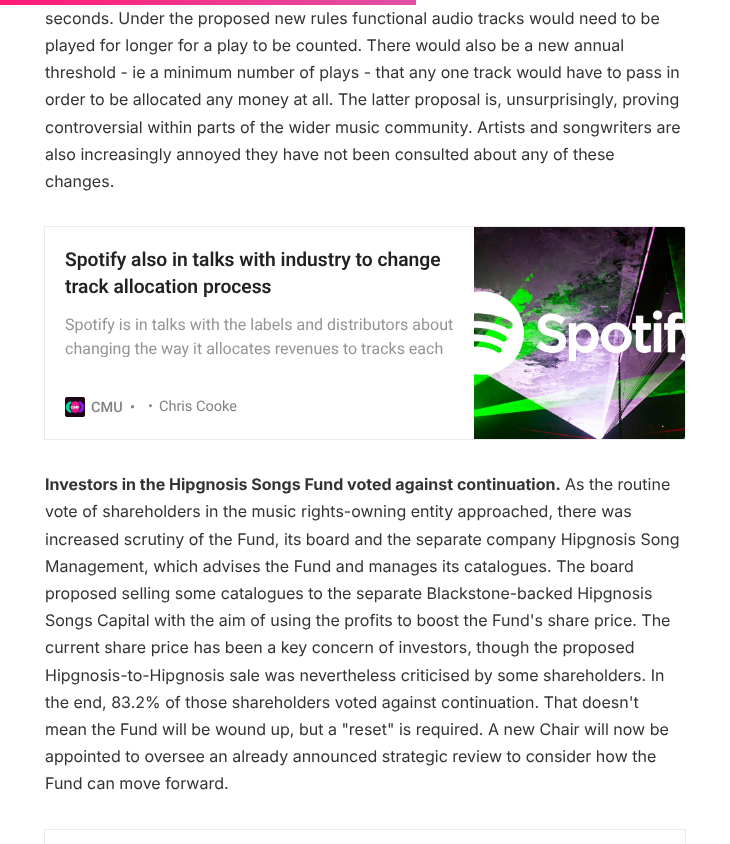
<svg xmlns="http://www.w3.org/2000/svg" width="730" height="844">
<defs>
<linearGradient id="g1" gradientUnits="userSpaceOnUse" x1="0" y1="2.5" x2="416" y2="2.5"><stop offset="0" stop-color="#ff1a75"/><stop offset="1" stop-color="#e052a5"/></linearGradient>
<clipPath id="clip1"><rect x="65" y="313" width="389" height="44"/></clipPath>
</defs>
<rect width="100%" height="100%" fill="#fff"/>
<rect width="416" height="5" fill="url(#g1)"/>
<text x="45" y="24" style="font-family:Inter;font-size:16px;fill:#333">seconds. Under the proposed new rules functional audio tracks would need to be</text>
<text x="45" y="51" style="font-family:Inter;font-size:16px;fill:#333">played for longer for a play to be counted. There would also be a new annual</text>
<text x="45" y="78" style="font-family:Inter;font-size:16px;fill:#333">threshold - ie a minimum number of plays - that any one track would have to pass in</text>
<text x="45" y="105" style="font-family:Inter;font-size:16px;fill:#333">order to be allocated any money at all. The latter proposal is, unsurprisingly, proving</text>
<text x="45" y="133" style="font-family:Inter;font-size:16px;fill:#333">controversial within parts of the wider music community. Artists and songwriters are</text>
<text x="45" y="160" style="font-family:Inter;font-size:16px;fill:#333">also increasingly annoyed they have not been consulted about any of these</text>
<text x="45" y="187" style="font-family:Inter;font-size:16px;fill:#333">changes.</text>
<rect x="44.5" y="226.5" width="641" height="213" fill="none" stroke="#ebebeb"/>
<text x="65" y="266" style="font-family:Roboto;font-size:19.25px;font-weight:600;fill:#222">Spotify also in talks with industry to change</text>
<text x="65" y="293" style="font-family:Roboto;font-size:19.25px;font-weight:600;fill:#222">track allocation process</text>
<text x="65" y="330" style="font-family:Roboto;font-size:16px;fill:#949494">Spotify is in talks with the labels and distributors about</text>
<g clip-path="url(#clip1)">
<text x="65" y="354" style="font-family:Roboto;font-size:16px;fill:#949494">changing the way it allocates revenues to tracks each</text>
</g>
<image x="65" y="397" width="20" height="20" href="media/1.png"/>
<text x="91" y="412" style="font-family:Roboto;font-size:14.5px;font-weight:500;fill:#828282">CMU</text>
<text x="130" y="412" style="font-family:Roboto;font-size:14.5px;font-weight:500;fill:#828282">•</text>
<text x="148" y="411" style="font-family:Roboto;font-size:14.5px;fill:#828282">•</text>
<text x="159" y="411" style="font-family:Roboto;font-size:14.5px;fill:#828282">Chris Cooke</text>
<image x="474" y="227" width="211" height="212" href="media/2.png"/>
<text x="45" y="490" style="font-family:Inter;font-size:16px;font-weight:bold;fill:#333">Investors in the Hipgnosis Songs Fund voted against continuation.</text>
<text x="565" y="490" style="font-family:Inter;font-size:16px;fill:#333">As the routine</text>
<text x="45" y="517" style="font-family:Inter;font-size:16px;fill:#333">vote of shareholders in the music rights-owning entity approached, there was</text>
<text x="45" y="545" style="font-family:Inter;font-size:16px;fill:#333">increased scrutiny of the Fund, its board and the separate company Hipgnosis Song</text>
<text x="45" y="572" style="font-family:Inter;font-size:16px;fill:#333">Management, which advises the Fund and manages its catalogues. The board</text>
<text x="45" y="599" style="font-family:Inter;font-size:16px;fill:#333">proposed selling some catalogues to the separate Blackstone-backed Hipgnosis</text>
<text x="45" y="626" style="font-family:Inter;font-size:16px;fill:#333">Songs Capital with the aim of using the profits to boost the Fund's share price. The</text>
<text x="45" y="653" style="font-family:Inter;font-size:16px;fill:#333">current share price has been a key concern of investors, though the proposed</text>
<text x="45" y="681" style="font-family:Inter;font-size:16px;fill:#333">Hipgnosis-to-Hipgnosis sale was nevertheless criticised by some shareholders. In</text>
<text x="45" y="708" style="font-family:Inter;font-size:16px;fill:#333">the end, 83.2% of those shareholders voted against continuation. That doesn't</text>
<text x="45" y="735" style="font-family:Inter;font-size:16px;fill:#333">mean the Fund will be wound up, but a "reset" is required. A new Chair will now be</text>
<text x="45" y="762" style="font-family:Inter;font-size:16px;fill:#333">appointed to oversee an already announced strategic review to consider how the</text>
<text x="45" y="789" style="font-family:Inter;font-size:16px;fill:#333">Fund can move forward.</text>
<rect x="44.5" y="829.5" width="641" height="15" fill="none" stroke="#ebebeb"/>
</svg>
